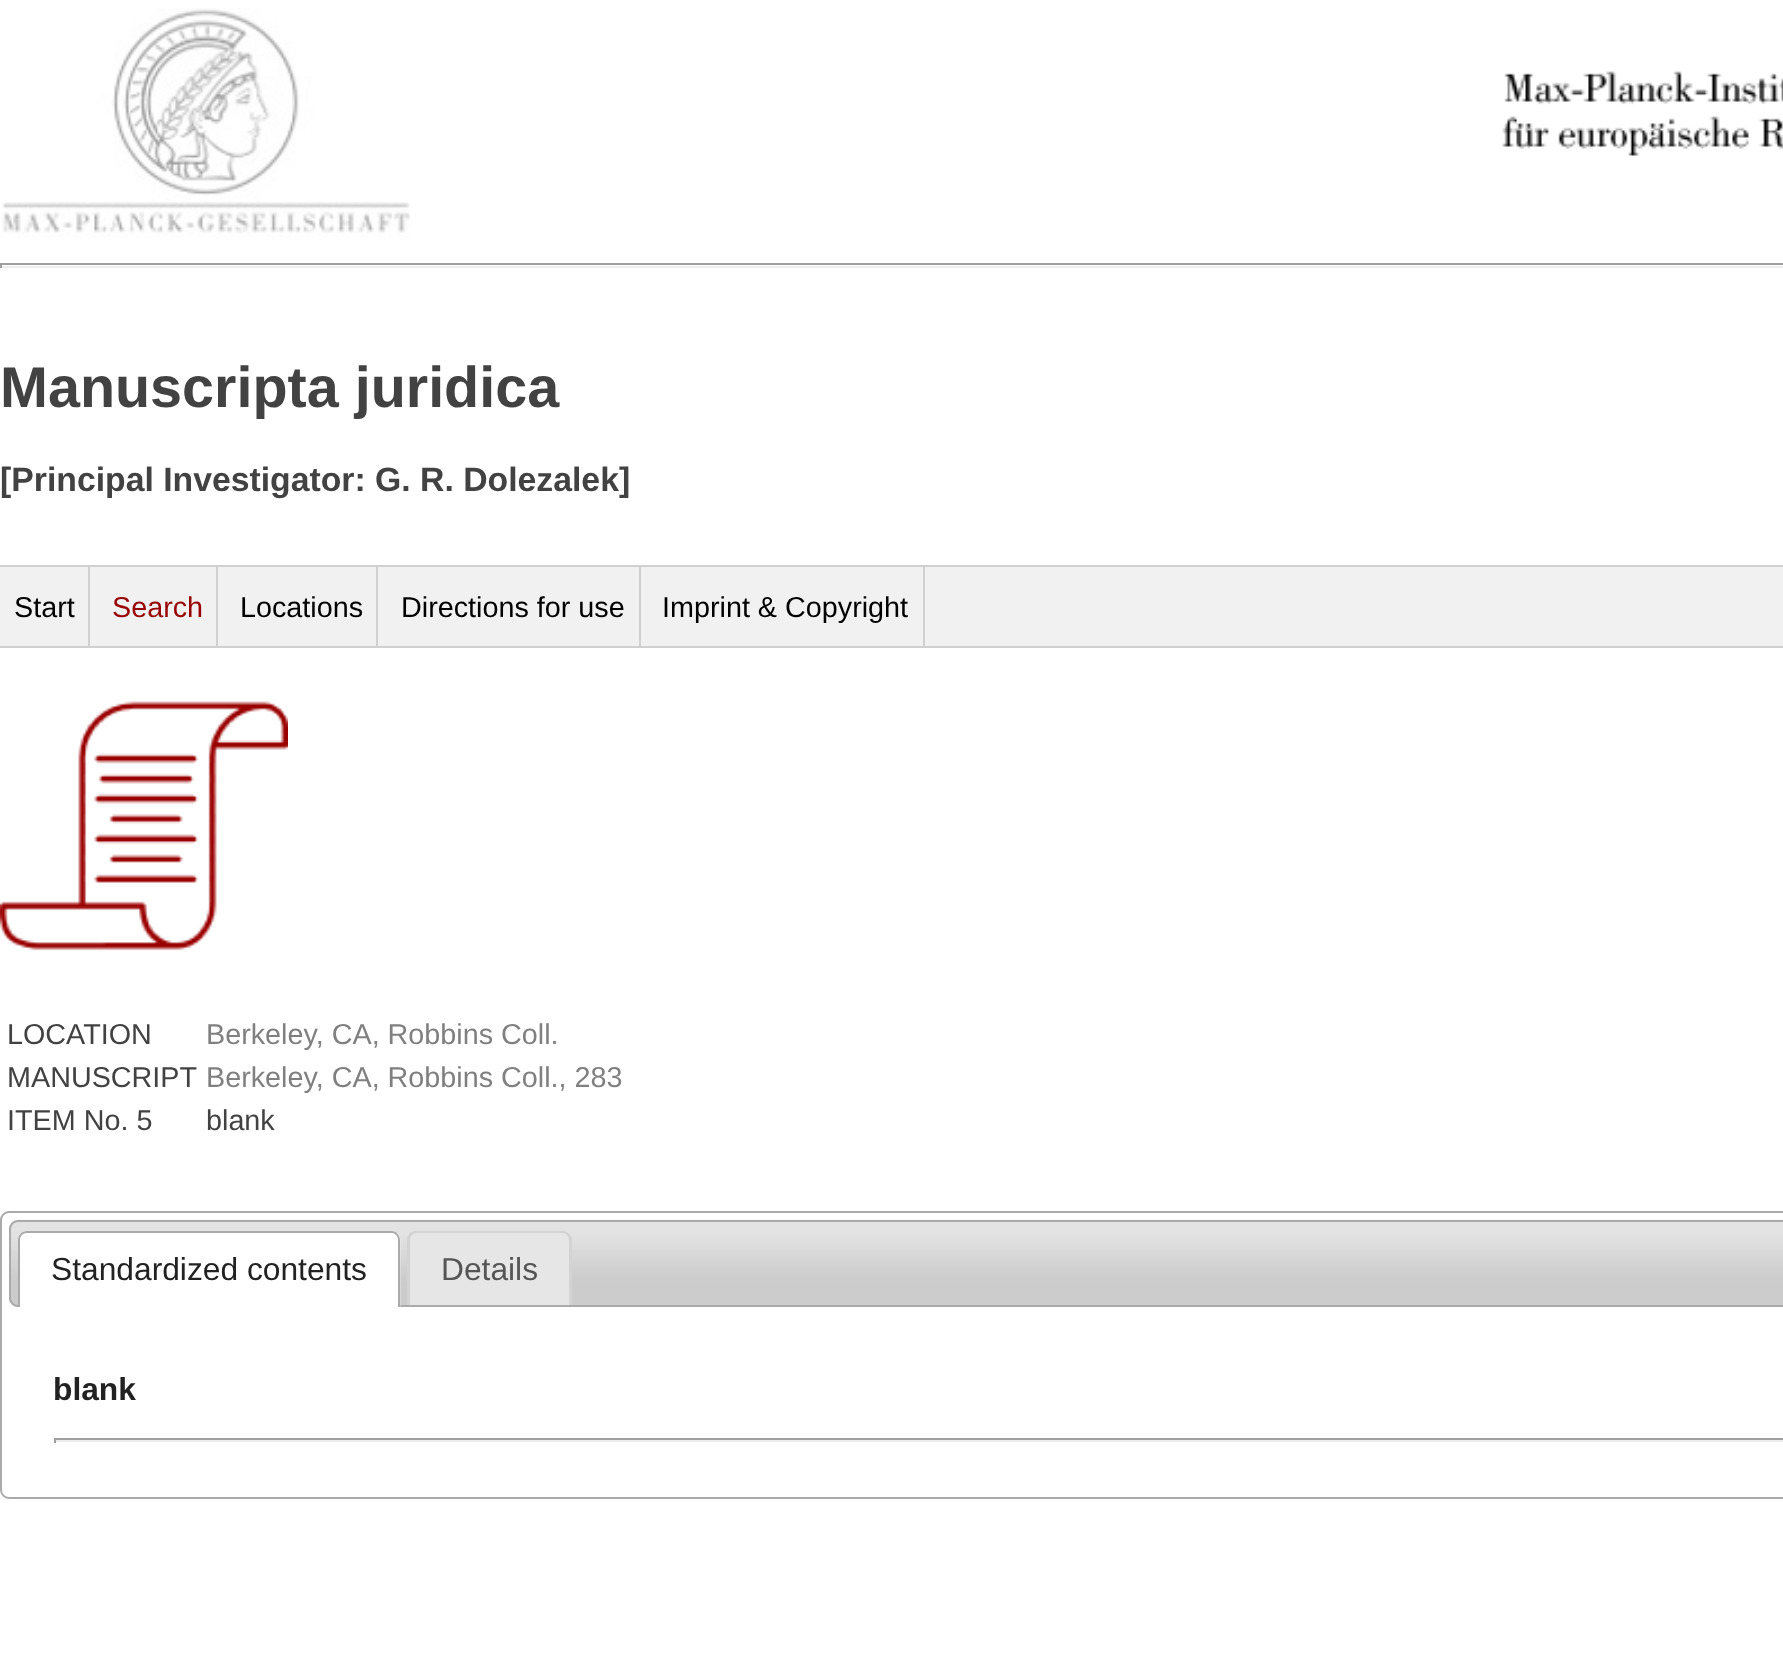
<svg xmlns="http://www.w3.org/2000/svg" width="1783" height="1668">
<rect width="100%" height="100%" fill="#fff"/>
<image x="2" y="8" width="408" height="230" href="media/1.png"/>
<image x="1502" y="71" width="281" height="85" href="media/2.png"/>
<rect y="263" width="1783" height="2" fill="#9f9f9f"/>
<rect y="266" width="1783" height="2" fill="#eee"/>
<rect y="263" width="2" height="5" fill="#9f9f9f"/>
<text x="0" y="407" style="font-family:Liberation Sans;font-size:57.5px;font-weight:bold;fill:#424242">Manuscripta juridica</text>
<text x="0" y="491" style="font-family:Liberation Sans;font-size:33.75px;font-weight:bold;fill:#424242">[Principal Investigator: G. R. Dolezalek]</text>
<rect y="567" width="1783" height="79" fill="#f1f1f1"/>
<rect y="565" width="1783" height="2" fill="#d0d0d0"/>
<rect y="646" width="1783" height="2" fill="#d0d0d0"/>
<rect x="88" y="567" width="2" height="79" fill="#d0d0d0"/>
<text x="14" y="617" style="font-family:Liberation Sans;font-size:28.75px;fill:#000">Start</text>
<rect x="216" y="567" width="2" height="79" fill="#d0d0d0"/>
<text x="112" y="617" style="font-family:Liberation Sans;font-size:28.75px;fill:#900">Search</text>
<rect x="376" y="567" width="2" height="79" fill="#d0d0d0"/>
<text x="240" y="617" style="font-family:Liberation Sans;font-size:28.75px;fill:#000">Locations</text>
<rect x="639" y="567" width="2" height="79" fill="#d0d0d0"/>
<text x="401" y="617" style="font-family:Liberation Sans;font-size:28.75px;fill:#000">Directions for use</text>
<rect x="923" y="567" width="2" height="79" fill="#d0d0d0"/>
<text x="662" y="617" style="font-family:Liberation Sans;font-size:28.75px;fill:#000">Imprint &amp; Copyright</text>
<image x="0" y="701" width="288" height="250" href="media/3.png"/>
<text x="7" y="1044" style="font-family:Liberation Sans;font-size:28.75px;fill:#424242">LOCATION</text>
<text x="206" y="1044" style="font-family:Liberation Sans;font-size:28.75px;fill:#808080">Berkeley, CA, Robbins Coll.</text>
<text x="7" y="1087" style="font-family:Liberation Sans;font-size:28.75px;fill:#424242">MANUSCRIPT</text>
<text x="206" y="1087" style="font-family:Liberation Sans;font-size:28.75px;fill:#808080">Berkeley, CA, Robbins Coll., 283</text>
<text x="7" y="1130" style="font-family:Liberation Sans;font-size:28.75px;fill:#424242">ITEM No. 5</text>
<text x="206" y="1130" style="font-family:Liberation Sans;font-size:28.75px;fill:#424242">blank</text>
<rect x="1" y="1212" width="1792" height="286" rx="8" fill="none" stroke="#aaa" stroke-width="2"/>
<image x="9" y="1219" width="1774" height="88" href="media/4.png"/>
<rect x="10" y="1221" width="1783" height="85" rx="8" fill="none" stroke="#aaa" stroke-width="2"/>
<image x="18" y="1231" width="383" height="76" href="media/5.png"/>
<path d="M27 1231h365c4 0 8 4 8 9v67h-382v-67c0-5 4-9 9-9zm0 2h365c3 0 6 3 6 7v67h-378v-67c0-4 3-7 7-7z" fill="#aaa" fill-rule="evenodd"/>
<text x="51" y="1280" style="font-family:Liberation Sans;font-size:31.75px;fill:#222">Standardized contents</text>
<path d="M417 1233h145c4 0 7 3 7 7v65h-159v-65c0-4 3-7 7-7z" fill="#e6e6e6"/>
<image x="407" y="1236" width="165" height="69" href="media/6.png"/>
<path d="M416 1231h146c5 0 10 4 10 9v65h-165v-65c0-5 4-9 9-9zm0 2h146c4 0 7 3 7 7v65h-159v-65c0-4 3-7 6-7z" fill="#d3d3d3" fill-rule="evenodd"/>
<text x="441" y="1280" style="font-family:Liberation Sans;font-size:31.75px;fill:#555">Details</text>
<text x="53" y="1400" style="font-family:Liberation Sans;font-size:31.75px;font-weight:bold;fill:#222">blank</text>
<rect x="54" y="1438" width="1729" height="2" fill="#9f9f9f"/>
<rect x="54" y="1440" width="1729" height="2" fill="#eee"/>
<rect x="54" y="1438" width="2" height="5" fill="#9f9f9f"/>
</svg>
